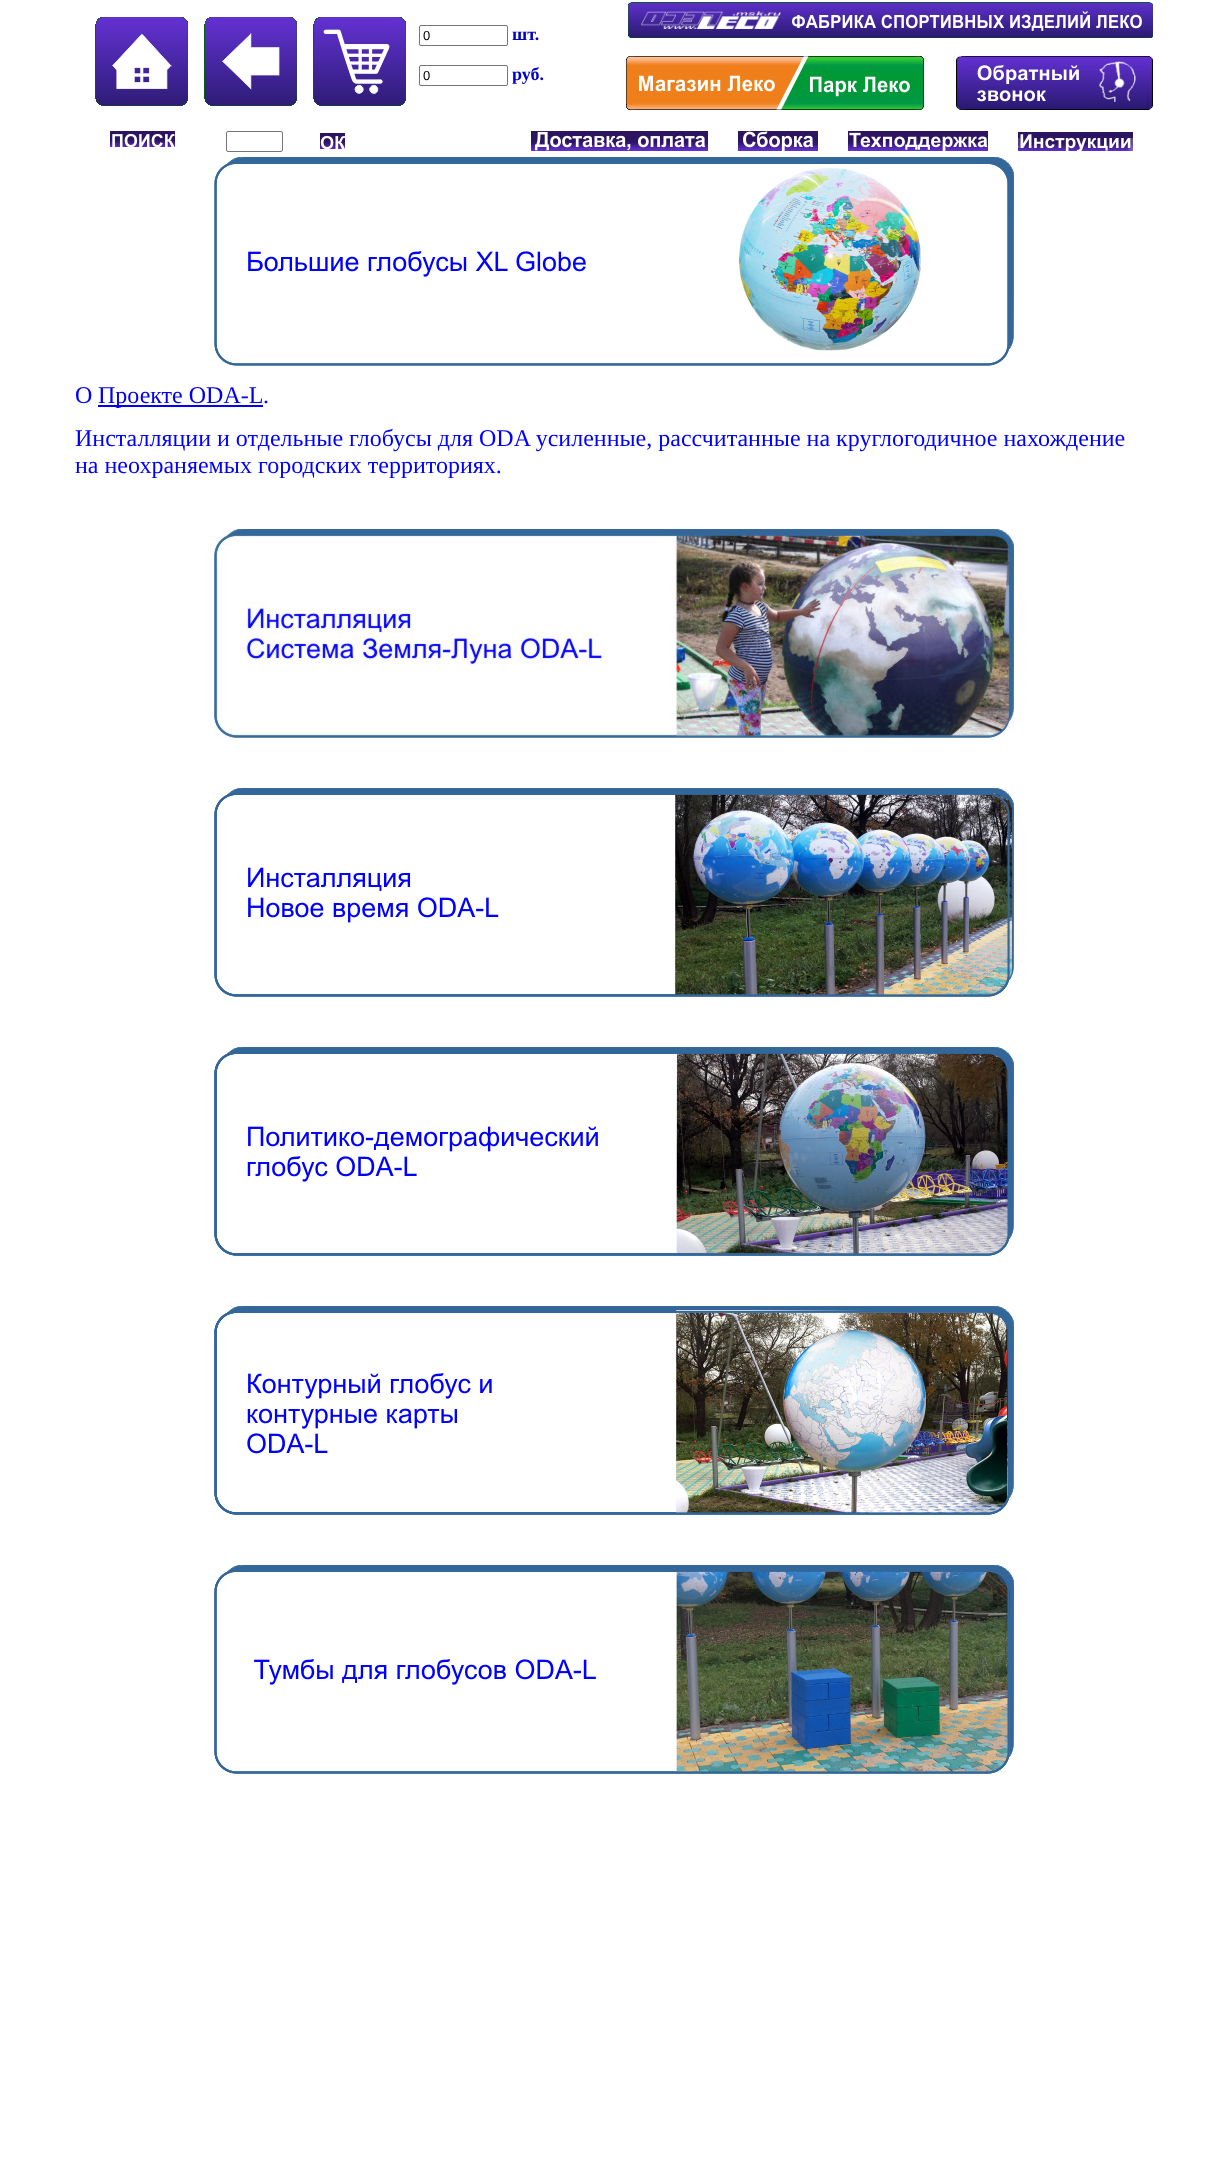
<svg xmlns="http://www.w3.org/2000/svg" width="1227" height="2177">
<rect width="100%" height="100%" fill="#fff"/>
<image x="95" y="17" width="93" height="89" href="media/1.png"/>
<image x="204" y="17" width="93" height="89" href="media/2.png"/>
<image x="313" y="17" width="93" height="89" href="media/3.png"/>
<rect x="419.5" y="25.5" width="88" height="20" rx="1.5" fill="none" stroke="#767676"/>
<text x="423" y="40" style="font-family:Liberation Sans;font-size:13px;fill:#000">0</text>
<text x="512" y="40" style="font-family:Liberation Serif;font-size:18px;font-weight:bold;fill:#00c">шт.</text>
<rect x="419.5" y="65.5" width="88" height="20" rx="1.5" fill="none" stroke="#767676"/>
<text x="423" y="80" style="font-family:Liberation Sans;font-size:13px;fill:#000">0</text>
<text x="512" y="80" style="font-family:Liberation Serif;font-size:18px;font-weight:bold;fill:#00c">руб.</text>
<image x="628" y="2" width="525" height="36" href="media/4.png"/>
<image x="626" y="56" width="298" height="54" href="media/5.png"/>
<image x="956" y="56" width="197" height="54" href="media/6.png"/>
<image x="110" y="131" width="65" height="16" href="media/7.png"/>
<rect x="226.5" y="131.5" width="56" height="20" rx="1.5" fill="none" stroke="#767676"/>
<image x="320" y="133" width="25" height="16" href="media/8.png"/>
<image x="531" y="131" width="177" height="20" href="media/9.png"/>
<image x="738" y="131" width="80" height="20" href="media/10.png"/>
<image x="848" y="131" width="140" height="20" href="media/11.png"/>
<image x="1018" y="132" width="115" height="19" href="media/12.png"/>
<image x="214" y="157" width="800" height="209" href="media/13.png"/>
<text x="75" y="403" style="font-family:Liberation Serif;font-size:24px;fill:#00f">О</text>
<rect x="98" y="405" width="165" height="2" fill="#00f"/>
<text x="98" y="403" style="font-family:Liberation Serif;font-size:24px;fill:#00e">Проекте ODA-L</text>
<text x="263" y="403" style="font-family:Liberation Serif;font-size:24px;fill:#00f">.</text>
<text x="75" y="446" style="font-family:Liberation Serif;font-size:24px;fill:#00f">Инсталляции и отдельные глобусы для ODA усиленные, рассчитанные на круглогодичное нахождение</text>
<text x="75" y="473" style="font-family:Liberation Serif;font-size:24px;fill:#00f">на неохраняемых городских территориях.</text>
<image x="214" y="529" width="800" height="209" href="media/14.png"/>
<image x="214" y="788" width="800" height="209" href="media/15.png"/>
<image x="214" y="1047" width="800" height="209" href="media/16.png"/>
<image x="214" y="1306" width="800" height="209" href="media/17.png"/>
<image x="214" y="1565" width="800" height="209" href="media/18.png"/>
</svg>
